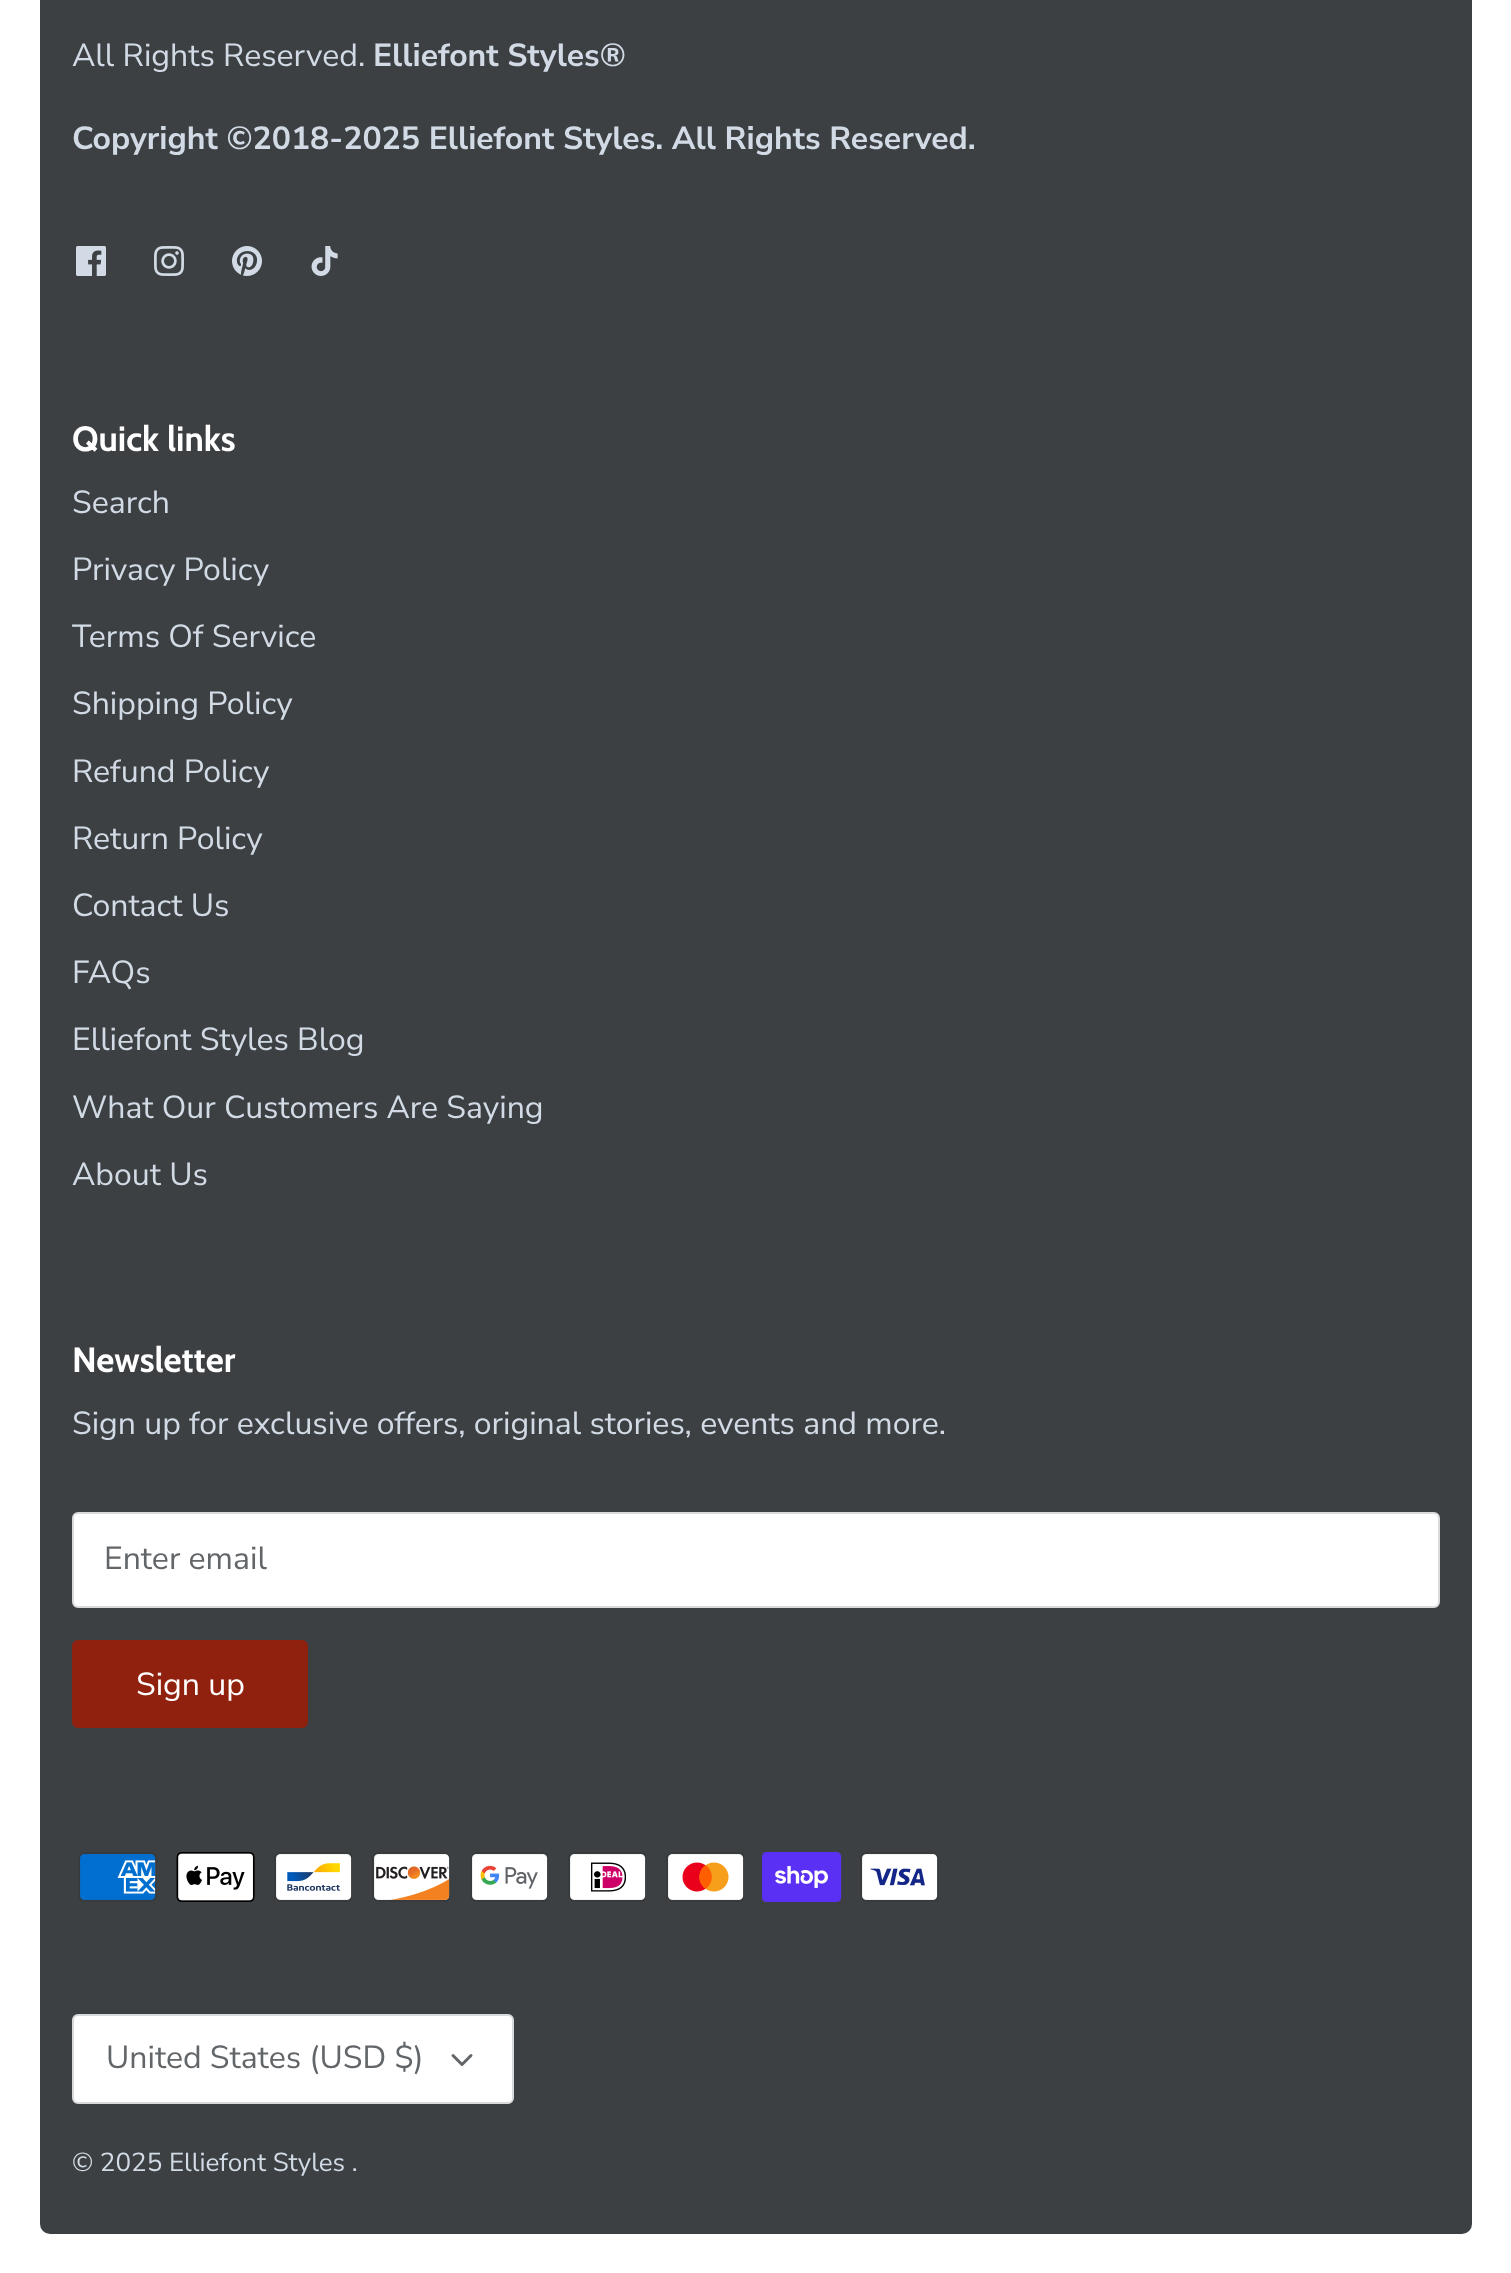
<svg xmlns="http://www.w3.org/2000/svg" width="1511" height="2273">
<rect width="100%" height="100%" fill="#fff"/>
<rect x="40" y="-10" width="1432" height="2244" rx="10" fill="#3c4043"/>
<text x="72" y="66" style="font-family:Nunito Sans;font-size:32px;fill:#d2dbe5">All Rights Reserved.</text>
<text x="373" y="66" style="font-family:Nunito Sans;font-size:32px;font-weight:bold;fill:#d2dbe5">Elliefont Styles®</text>
<text x="72" y="149" style="font-family:Nunito Sans;font-size:32px;font-weight:bold;fill:#d2dbe5">Copyright ©2018-2025 Elliefont Styles. All Rights Reserved.</text>
<image x="76" y="246" width="30" height="30" href="media/1.png"/>
<image x="154" y="246" width="30" height="30" href="media/2.png"/>
<image x="232" y="246" width="30" height="30" href="media/3.png"/>
<image x="311" y="246" width="27" height="30" href="media/4.png"/>
<text x="72" y="451" style="font-family:Cabin;font-size:35px;font-weight:bold;fill:#fff">Quick links</text>
<text x="72" y="513" style="font-family:Nunito Sans;font-size:32px;fill:#d2dbe5">Search</text>
<text x="72" y="580" style="font-family:Nunito Sans;font-size:32px;fill:#d2dbe5">Privacy Policy</text>
<text x="72" y="647" style="font-family:Nunito Sans;font-size:32px;fill:#d2dbe5">Terms Of Service</text>
<text x="72" y="714" style="font-family:Nunito Sans;font-size:32px;fill:#d2dbe5">Shipping Policy</text>
<text x="72" y="782" style="font-family:Nunito Sans;font-size:32px;fill:#d2dbe5">Refund Policy</text>
<text x="72" y="849" style="font-family:Nunito Sans;font-size:32px;fill:#d2dbe5">Return Policy</text>
<text x="72" y="916" style="font-family:Nunito Sans;font-size:32px;fill:#d2dbe5">Contact Us</text>
<text x="72" y="983" style="font-family:Nunito Sans;font-size:32px;fill:#d2dbe5">FAQs</text>
<text x="72" y="1050" style="font-family:Nunito Sans;font-size:32px;fill:#d2dbe5">Elliefont Styles Blog</text>
<text x="72" y="1118" style="font-family:Nunito Sans;font-size:32px;fill:#d2dbe5">What Our Customers Are Saying</text>
<text x="72" y="1185" style="font-family:Nunito Sans;font-size:32px;fill:#d2dbe5">About Us</text>
<text x="72" y="1372" style="font-family:Cabin;font-size:35px;font-weight:bold;fill:#fff">Newsletter</text>
<text x="72" y="1434" style="font-family:Nunito Sans;font-size:32px;fill:#d2dbe5">Sign up for exclusive offers, original stories, events and more.</text>
<rect x="73" y="1513" width="1366" height="94" rx="5" fill="#fff" stroke="#d8d9da" stroke-width="2"/>
<text x="104" y="1569" style="font-family:Nunito Sans;font-size:32px;fill:#636669">Enter email</text>
<rect x="73" y="1641" width="234" height="86" rx="5" fill="#91210f" stroke="#91210f" stroke-width="2"/>
<text x="136" y="1695" style="font-family:Nunito Sans;font-size:32px;fill:#fff">Sign up</text>
<image x="78" y="1852" width="79" height="50" href="media/5.png"/>
<image x="176" y="1852" width="79" height="50" href="media/6.png"/>
<image x="274" y="1852" width="78" height="50" href="media/7.png"/>
<image x="372" y="1852" width="78" height="50" href="media/8.png"/>
<image x="470" y="1852" width="78" height="50" href="media/9.png"/>
<image x="568" y="1852" width="78" height="50" href="media/10.png"/>
<image x="666" y="1852" width="78" height="50" href="media/11.png"/>
<image x="762" y="1852" width="80" height="50" href="media/12.png"/>
<image x="860" y="1852" width="79" height="50" href="media/13.png"/>
<rect x="73" y="2015" width="440" height="88" rx="5" fill="#fff" stroke="#d8d9da" stroke-width="2"/>
<text x="106" y="2068" style="font-family:Nunito Sans;font-size:32px;fill:#636669">United States (USD $)</text>
<path d="M453 2055.5l9 9l9-9" fill="none" stroke="#636669" stroke-width="3" stroke-linecap="round" stroke-linejoin="round"/>
<text x="72" y="2171" style="font-family:Nunito Sans;font-size:26px;fill:#d2dbe5">© 2025 Elliefont Styles .</text>
</svg>
